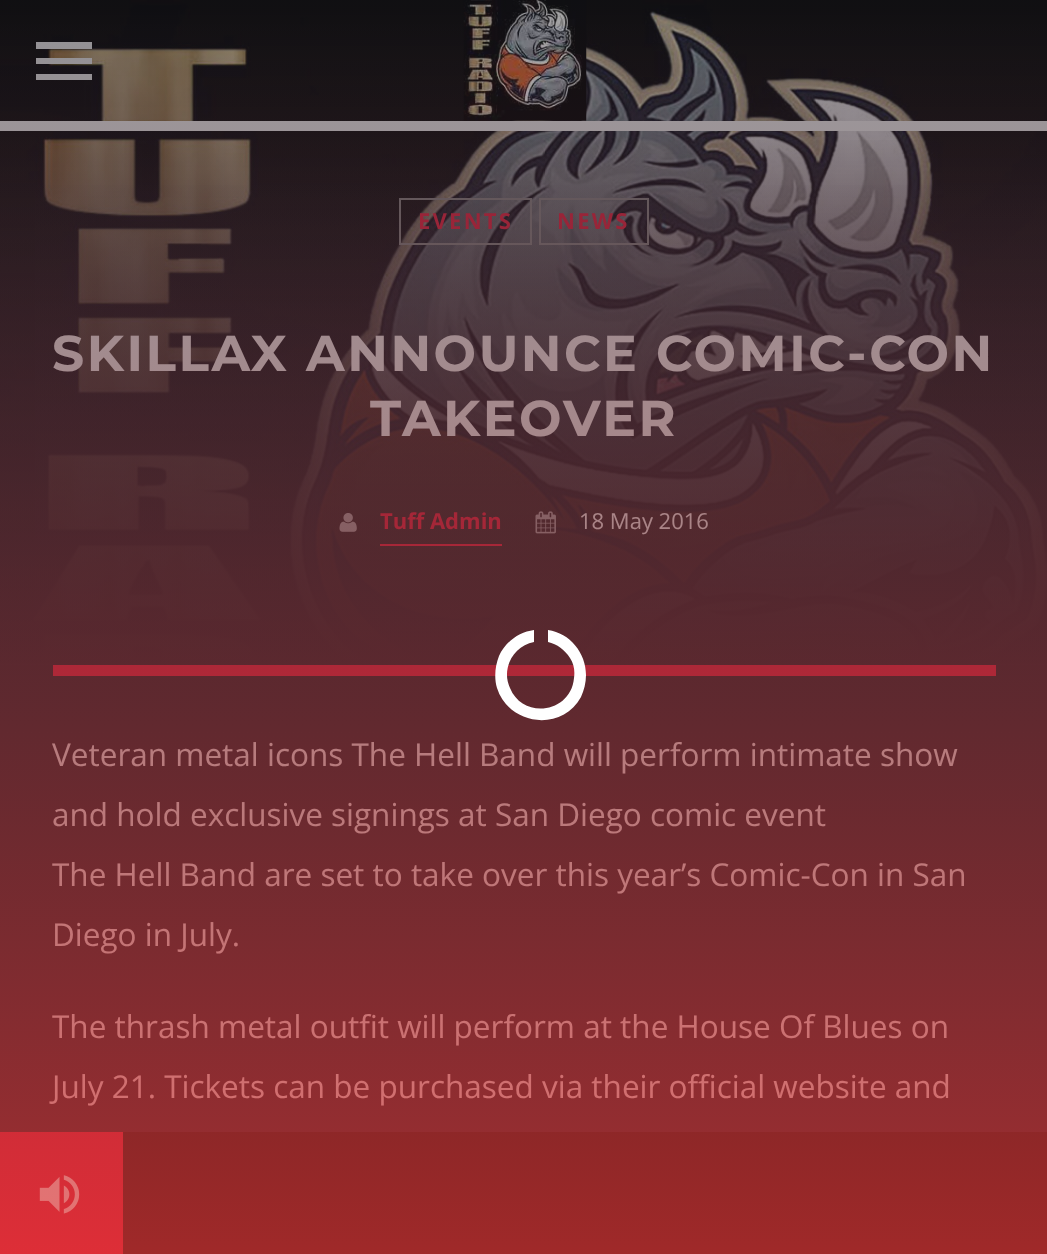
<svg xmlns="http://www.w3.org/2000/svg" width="1047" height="1254">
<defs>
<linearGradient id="g1" gradientUnits="userSpaceOnUse" x1="524" y1="0" x2="524" y2="1129"><stop offset="0" stop-color="#24242d" stop-opacity="0"/><stop offset="1" stop-color="#24242d"/></linearGradient>
<linearGradient id="g2" gradientUnits="userSpaceOnUse" x1="524" y1="128" x2="524" y2="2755"><stop offset="0" stop-color="#24242d" stop-opacity="0"/><stop offset="1" stop-color="#24242d"/></linearGradient>
<linearGradient id="g3" gradientUnits="userSpaceOnUse" x1="524" y1="128" x2="524" y2="667"><stop offset="0" stop-color="#24242d" stop-opacity="0"/><stop offset="1" stop-color="#24242d"/></linearGradient>
<linearGradient id="g4" gradientUnits="userSpaceOnUse" x1="524" y1="0" x2="524" y2="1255"><stop offset="0" stop-color="#24242d" stop-opacity="0.4"/><stop offset="1" stop-color="#d33" stop-opacity="0.7"/></linearGradient>
</defs>
<rect width="100%" height="100%" fill="#fff"/>
<image x="0" y="0" width="1047" height="664" href="media/3.png"/>
<rect y="24" width="1047" height="640" fill="url(#g1)"/>
<path d="M36 80h56v-6h-56zm0-16h56v-6h-56zm0-22v7h56v-7z" fill="#dedede"/>
<image x="463" y="0" width="124" height="121" href="media/1.png"/>
<rect x="123" y="1132" width="924" height="122" fill="#121212"/>
<rect y="1132" width="123" height="122" fill="#de2341"/>
<image x="39" y="1175" width="41" height="39" href="media/2.png"/>
<rect y="121" width="1047" height="10" fill="#e8e8e8"/>
<rect x="35" y="185" width="1012" height="479" fill="url(#g2)"/>
<rect y="140" width="1047" height="525" fill="url(#g3)"/>
<rect x="400" y="199" width="131" height="45" fill="none" stroke="#808080" stroke-width="2"/>
<text x="418" y="229" style="font-family:Open Sans;font-size:22px;font-weight:bold;letter-spacing:2.25px;fill:#de2341">EVENTS</text>
<rect x="540" y="199" width="108" height="45" fill="none" stroke="#808080" stroke-width="2"/>
<text x="557" y="229" style="font-family:Open Sans;font-size:22px;font-weight:bold;letter-spacing:2.25px;fill:#de2341">NEWS</text>
<text x="52" y="371" style="font-family:Montserrat;font-size:50.4px;font-weight:bold;letter-spacing:2.5px;fill:#e8e8e8">SKILLAX ANNOUNCE COMIC-CON</text>
<text x="370" y="436" style="font-family:Montserrat;font-size:50.4px;font-weight:bold;letter-spacing:2.5px;fill:#e8e8e8">TAKEOVER</text>
<image x="339" y="513" width="18" height="19" href="media/4.png"/>
<text x="380" y="529" style="font-family:Open Sans;font-size:22px;font-weight:bold;fill:#de2341">Tuff Admin</text>
<rect x="380" y="544" width="122" height="2" fill="#de2341"/>
<image x="535" y="511" width="21" height="23" href="media/5.png"/>
<text x="579" y="529" style="font-family:Open Sans;font-size:22px;fill:#e8e8e8">18 May 2016</text>
<rect y="665" width="1047" height="467" fill="#24242d"/>
<rect x="53" y="665" width="943" height="11" fill="#de2341"/>
<text x="52" y="766" style="font-family:Open Sans;font-size:31.5px;fill:#e8e8e8">Veteran metal icons The Hell Band will perform intimate show</text>
<text x="52" y="826" style="font-family:Open Sans;font-size:31.5px;fill:#e8e8e8">and hold exclusive signings at San Diego comic event</text>
<text x="52" y="886" style="font-family:Open Sans;font-size:31.5px;fill:#e8e8e8">The Hell Band are set to take over this year’s Comic-Con in San</text>
<text x="52" y="946" style="font-family:Open Sans;font-size:31.5px;fill:#e8e8e8">Diego in July.</text>
<text x="52" y="1038" style="font-family:Open Sans;font-size:31.5px;fill:#e8e8e8">The thrash metal outfit will perform at the House Of Blues on</text>
<text x="52" y="1098" style="font-family:Open Sans;font-size:31.5px;fill:#e8e8e8">July 21. Tickets can be purchased via their official website and</text>
<rect width="1047" height="1254" fill="url(#g4)"/>
<path d="M586 675c0 8-2 15-5 22c-19 35-72 29-84-9c-3-10-2-22 2-32c6-14 20-24 35-26v12c-21 4-33 27-24 46c13 32 61 25 64-10c1-7 0-14-4-20c-5-8-13-14-22-16v-12c22 3 38 23 38 45z" fill="#fff"/>
</svg>
